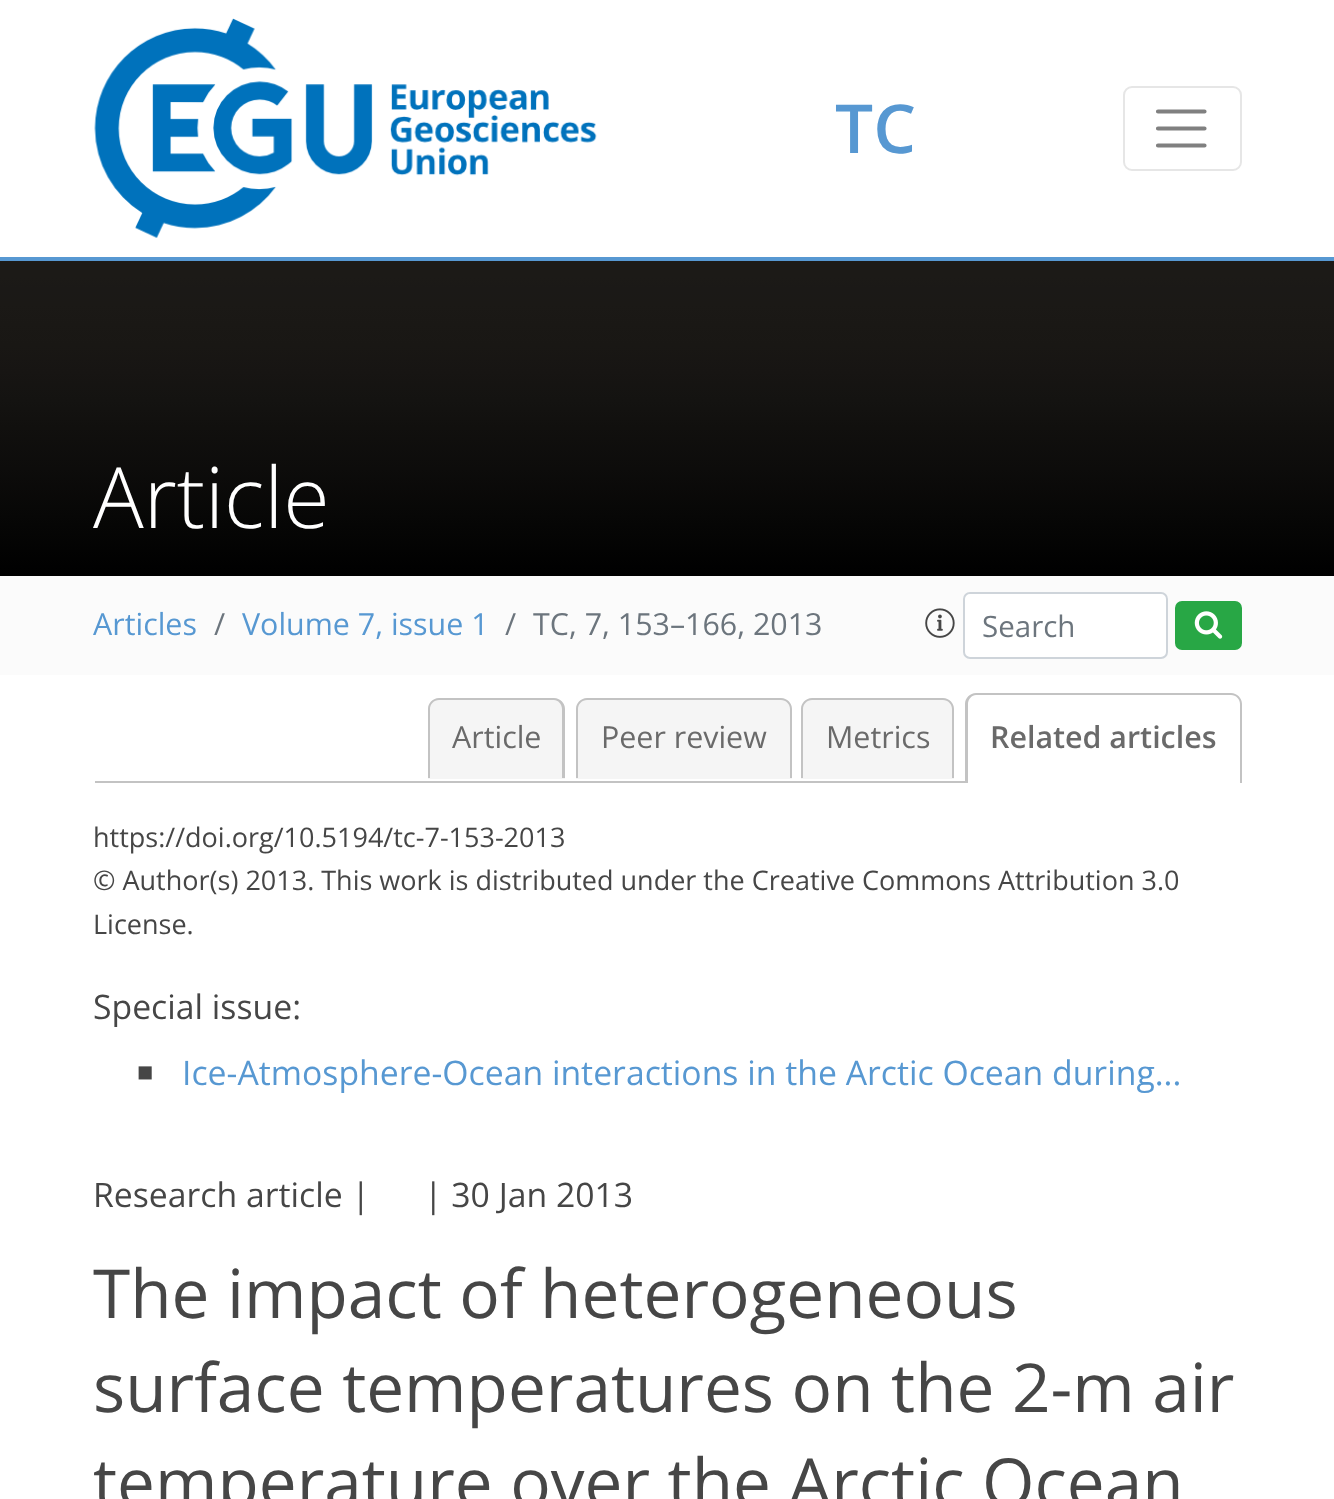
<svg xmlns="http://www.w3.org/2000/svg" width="1334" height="1499">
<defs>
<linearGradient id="g1" gradientUnits="userSpaceOnUse" x1="667" y1="576" x2="667" y2="261"><stop offset="0" stop-color="#000"/><stop offset="0.19" stop-color="#070706"/><stop offset="0.34" stop-color="#0d0c0b"/><stop offset="0.47" stop-color="#11100e"/><stop offset="0.56" stop-color="#141311"/><stop offset="0.65" stop-color="#171513"/><stop offset="0.73" stop-color="#191714"/><stop offset="0.8" stop-color="#1a1815"/><stop offset="0.86" stop-color="#1b1916"/><stop offset="0.91" stop-color="#1b1917"/><stop offset="0.95" stop-color="#1c1a17"/><stop offset="1" stop-color="#1c1a17"/></linearGradient>
</defs>
<rect width="100%" height="100%" fill="#fff"/>
<image x="94" y="18" width="503" height="220" href="media/1.png"/>
<text x="835" y="153" style="font-family:Open Sans;font-size:67.5px;font-weight:600;fill:#5798d2">TC</text>
<rect x="1124" y="87" width="117" height="83" rx="8" fill="none" stroke="#e6e6e6" stroke-width="2"/>
<path d="M1158 111.5h46.5m-46.5 17h46.5m-46.5 17h46.5" fill="none" stroke="#808080" stroke-width="4.2" stroke-linecap="round"/>
<rect y="257" width="1334" height="4" fill="#5798d2"/>
<rect y="261" width="1334" height="315" fill="url(#g1)"/>
<text x="93" y="528" style="font-family:Open Sans;font-size:84.5px;font-weight:300;fill:#fff">Article</text>
<rect y="576" width="1334" height="99" fill="#fbfbfb"/>
<text x="93" y="635" style="font-family:Open Sans;font-size:30.4px;fill:#5798d2">Articles</text>
<text x="214" y="635" style="font-family:Open Sans;font-size:30.4px;fill:#6c757d">/</text>
<text x="242" y="635" style="font-family:Open Sans;font-size:30.4px;fill:#5798d2">Volume 7, issue 1</text>
<text x="505" y="635" style="font-family:Open Sans;font-size:30.4px;fill:#6c757d">/</text>
<text x="533" y="635" style="font-family:Open Sans;font-size:30.4px;fill:#6c757d">TC, 7, 153–166, 2013</text>
<image x="925" y="608" width="30" height="30" href="media/2.png"/>
<rect x="964" y="593" width="203" height="65" rx="6" fill="#fff" stroke="#ced4da" stroke-width="2"/>
<text x="982" y="637" style="font-family:Open Sans;font-size:29.5px;fill:#6c757d">Search</text>
<rect x="1176" y="602" width="65" height="47" rx="6" fill="#28a745" stroke="#28a745" stroke-width="2"/>
<image x="1194" y="611" width="29" height="28" href="media/3.png"/>
<rect x="95" y="781" width="870" height="2" fill="#c3c3c3"/>
<path d="M439 698h115c6 0 11 5 11 11v70h-137v-70c0-6 5-11 11-11z" fill="#f5f5f5"/>
<path d="M439 698h115c6 0 11 5 11 11v69h-137v-69c0-6 5-11 11-11zm0 2h115c4 0 8 4 8 9v69h-132v-69c0-5 4-9 9-9z" fill="#c3c3c3" fill-rule="evenodd"/>
<text x="452" y="748" style="font-family:Open Sans;font-size:30.4px;fill:#6a6a6a">Article</text>
<path d="M587 698h194c6 0 11 5 11 11v70h-216v-70c0-6 5-11 11-11z" fill="#f5f5f5"/>
<path d="M587 698h194c6 0 11 5 11 11v69h-216v-69c0-6 5-11 11-11zm0 2h194c5 0 9 4 9 9v69h-212v-69c0-5 4-9 9-9z" fill="#c3c3c3" fill-rule="evenodd"/>
<text x="601" y="748" style="font-family:Open Sans;font-size:30.4px;fill:#6a6a6a">Peer review</text>
<path d="M812 698h131c6 0 11 5 11 11v70h-153v-70c0-6 5-11 11-11z" fill="#f5f5f5"/>
<path d="M812 698h131c6 0 11 5 11 11v69h-153v-69c0-6 5-11 11-11zm0 2h131c5 0 9 4 9 9v69h-149v-69c0-5 4-9 9-9z" fill="#c3c3c3" fill-rule="evenodd"/>
<text x="826" y="748" style="font-family:Open Sans;font-size:30.4px;fill:#6a6a6a">Metrics</text>
<path d="M976 693h255c6 0 11 5 11 11v79h-277v-79c0-6 5-11 11-11zm0 2h255c5 0 9 4 9 9v79h-272v-79c0-5 4-9 8-9z" fill="#c3c3c3" fill-rule="evenodd"/>
<text x="990" y="748" style="font-family:Open Sans;font-size:30.4px;font-weight:600;fill:#6a6a6a">Related articles</text>
<text x="93" y="847" style="font-family:Open Sans;font-size:27px;fill:#464646">https://doi.org/10.5194/tc-7-153-2013</text>
<text x="93" y="890" style="font-family:Open Sans;font-size:27px;fill:#464646">© Author(s) 2013. This work is distributed under the Creative Commons Attribution 3.0</text>
<text x="93" y="934" style="font-family:Open Sans;font-size:27px;fill:#464646">License.</text>
<text x="93" y="1019" style="font-family:Open Sans;font-size:33.75px;fill:#464646">Special issue:</text>
<text x="137" y="1081" style="font-family:Liberation Sans;font-size:27px;fill:#464646">■</text>
<text x="182" y="1085" style="font-family:Open Sans;font-size:33.75px;fill:#5798d2">Ice-Atmosphere-Ocean interactions in the Arctic Ocean during...</text>
<text x="93" y="1207" style="font-family:Open Sans;font-size:33.75px;fill:#464646">Research article |</text>
<text x="424" y="1207" style="font-family:Open Sans;font-size:33.75px;fill:#464646">| 30 Jan 2013</text>
<text x="93" y="1318" style="font-family:Open Sans;font-size:67.5px;fill:#464646">The impact of heterogeneous</text>
<text x="93" y="1412" style="font-family:Open Sans;font-size:67.5px;fill:#464646">surface temperatures on the 2-m air</text>
<text x="93" y="1507" style="font-family:Open Sans;font-size:67.5px;fill:#464646">temperature over the Arctic Ocean</text>
</svg>
